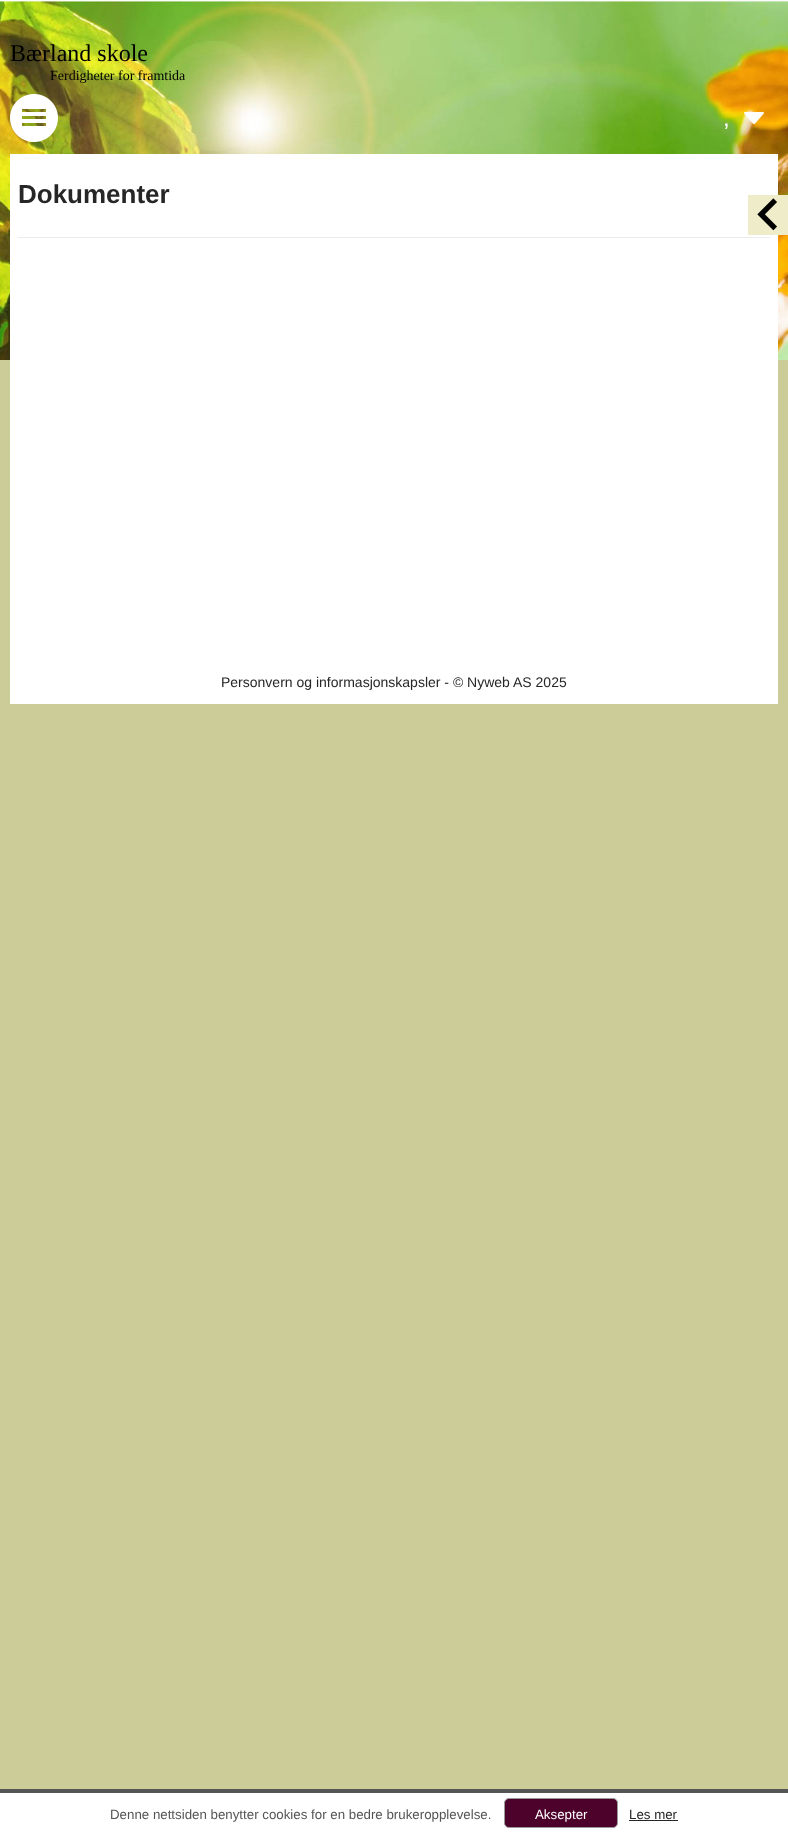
<svg xmlns="http://www.w3.org/2000/svg" width="788" height="1833">
<rect width="100%" height="100%" fill="#cc9"/>
<image x="0" y="0" width="788" height="360" href="media/1.png"/>
<text x="10" y="61" style="font-family:Liberation Serif;font-size:24px;fill:#000">Bærland skole</text>
<text x="50" y="80" style="font-family:Liberation Serif;font-size:14px;fill:#000">Ferdigheter for framtida</text>
<image x="10" y="94" width="48" height="48" href="media/2.png"/>
<image x="744" y="112" width="20" height="12" href="media/3.png"/>
<text x="723" y="126" style="font-family:Liberation Sans;font-size:24px;fill:#fff">,</text>
<rect x="10" y="154" width="768" height="550" fill="#fff"/>
<text x="18" y="203" style="font-family:Liberation Sans;font-size:26px;font-weight:bold;fill:#262626">Dokumenter</text>
<rect x="18" y="237" width="752" height="1" fill="#ebebeb"/>
<rect x="748" y="195" width="40" height="40" fill="#efecca"/>
<image x="757" y="198" width="20" height="33" href="media/4.png"/>
<text x="221" y="687" style="font-family:Liberation Sans;font-size:14px;fill:#262626">Personvern og informasjonskapsler - © Nyweb AS 2025</text>
<rect y="1793" width="788" height="40" fill="#fff"/>
<rect y="1789" width="788" height="4" fill="#555"/>
<text x="110" y="1819" style="font-family:Liberation Sans;font-size:13.3px;fill:#555">Denne nettsiden benytter cookies for en bedre brukeropplevelse.</text>
<rect x="504.5" y="1798.5" width="113" height="29" rx="4.5" fill="#4d022b" stroke="#999"/>
<text x="535" y="1819" style="font-family:Liberation Sans;font-size:13.3px;fill:#fff">Aksepter</text>
<text x="629" y="1819" style="font-family:Liberation Sans;font-size:13.3px;fill:#262626">Les mer</text>
<rect x="629" y="1820" width="49" height="1" fill="#262626"/>
</svg>
